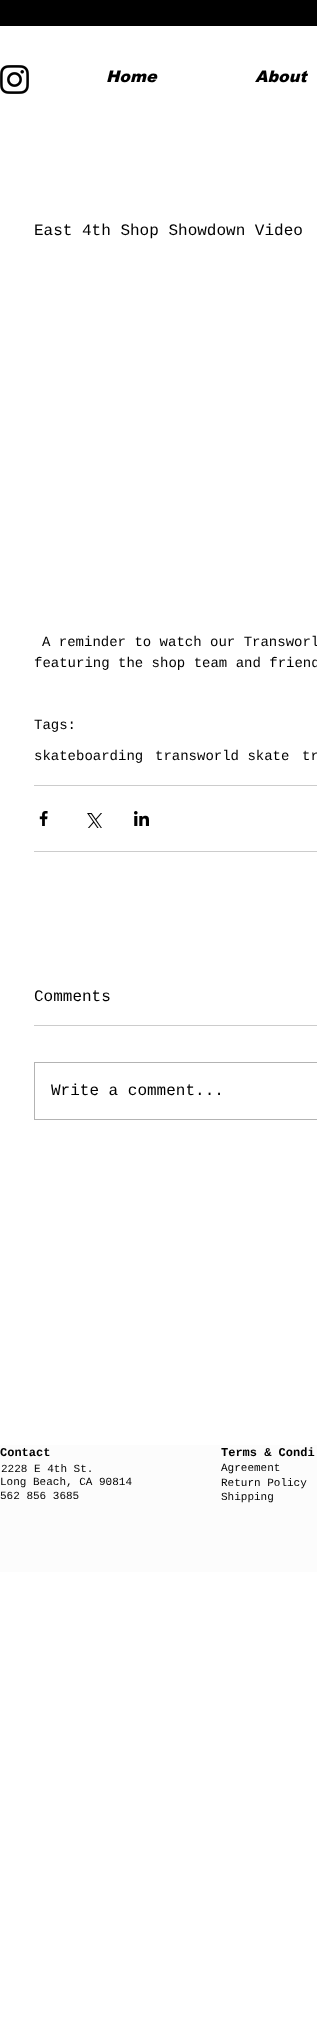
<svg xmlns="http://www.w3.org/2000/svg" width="317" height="2023">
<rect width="100%" height="100%" fill="#fff"/>
<rect width="317" height="26" fill="#000"/>
<image x="0" y="65" width="29" height="29" href="media/1.png"/>
<text x="106" y="82" style="font-family:arial;font-size:16px;font-weight:900;font-style:italic;fill:#000">Home</text>
<text x="255" y="82" style="font-family:arial;font-size:16px;font-weight:900;font-style:italic;fill:#000">About</text>
<text x="34" y="235" style="font-family:Liberation Mono;font-size:16px;fill:#000">East 4th Shop Showdown Video</text>
<text x="42" y="646" style="font-family:Liberation Mono;font-size:14px;fill:#000">A reminder to watch our Transworl</text>
<text x="34" y="667" style="font-family:Liberation Mono;font-size:14px;fill:#000">featuring the shop team and friend</text>
<text x="34" y="729" style="font-family:Liberation Mono;font-size:14px;fill:#000">Tags:</text>
<text x="34" y="760" style="font-family:Liberation Mono;font-size:14px;fill:#000">skateboarding</text>
<text x="155" y="760" style="font-family:Liberation Mono;font-size:14px;fill:#000">transworld skate</text>
<text x="302" y="760" style="font-family:Liberation Mono;font-size:14px;fill:#000">tr</text>
<rect x="34" y="785" width="283" height="1" fill="#ccc"/>
<image x="39" y="811" width="9" height="15" href="media/2.png"/>
<image x="87" y="813" width="15" height="15" href="media/3.png"/>
<image x="134" y="811" width="15" height="15" href="media/4.png"/>
<rect x="34" y="851" width="283" height="1" fill="#ccc"/>
<text x="34" y="1001" style="font-family:Liberation Mono;font-size:16px;fill:#000">Comments</text>
<rect x="34" y="1025" width="283" height="1" fill="#ccc"/>
<rect x="34.5" y="1062.5" width="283" height="57" fill="none" stroke="#b3b3b3"/>
<text x="51" y="1095" style="font-family:Liberation Mono;font-size:16px;fill:#000">Write a comment...</text>
<rect y="1445" width="317" height="127" fill="#fcfcfc"/>
<text x="0" y="1456" style="font-family:Liberation Mono;font-size:12px;font-weight:bold;fill:#000">Contact</text>
<text x="221" y="1456" style="font-family:Liberation Mono;font-size:12px;font-weight:bold;fill:#000">Terms &amp; Condi</text>
<text x="1" y="1472" style="font-family:Liberation Mono;font-size:11px;fill:#000">2228 E 4th St.</text>
<text x="221" y="1471" style="font-family:Liberation Mono;font-size:11px;fill:#000">Agreement</text>
<text x="0" y="1485" style="font-family:Liberation Mono;font-size:11px;fill:#000">Long Beach, CA 90814</text>
<text x="221" y="1486" style="font-family:Liberation Mono;font-size:11px;fill:#000">Return Policy</text>
<text x="0" y="1499" style="font-family:Liberation Mono;font-size:11px;fill:#000">562 856 3685</text>
<text x="221" y="1500" style="font-family:Liberation Mono;font-size:11px;fill:#000">Shipping</text>
</svg>
